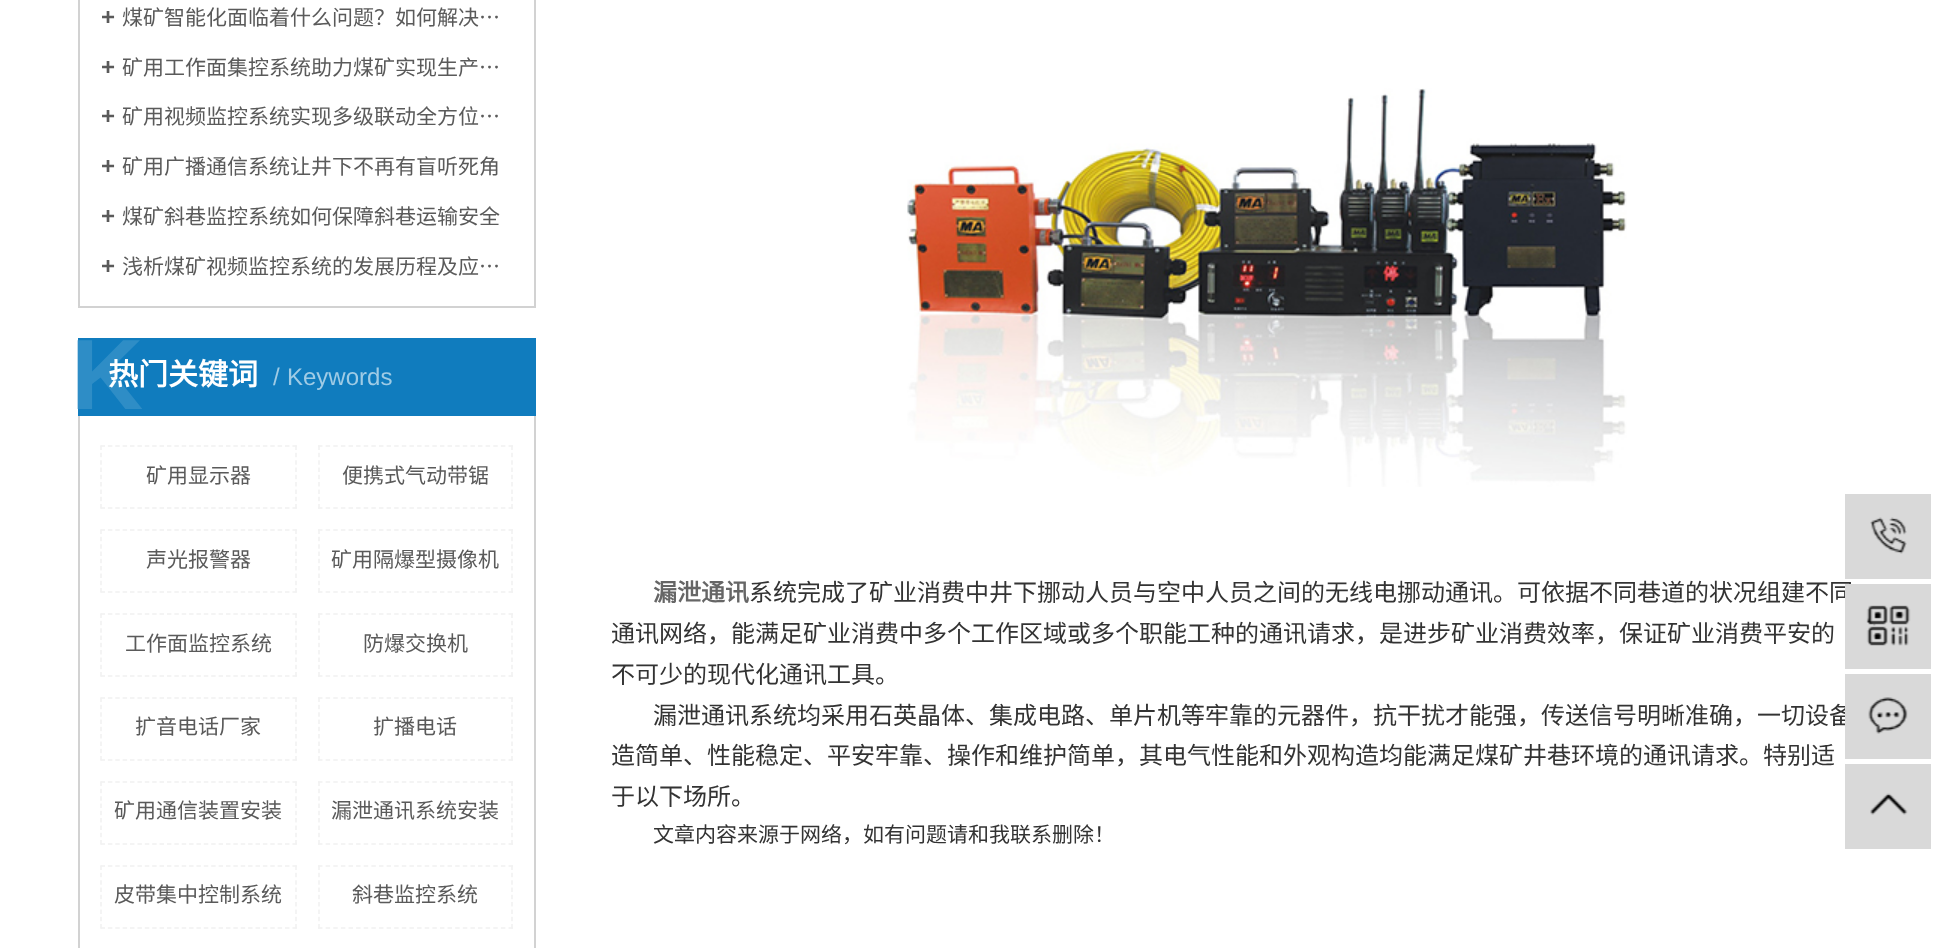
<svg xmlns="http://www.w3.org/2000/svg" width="1956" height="948">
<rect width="100%" height="100%" fill="#fff"/>
<rect x="534" width="2" height="308" fill="#d2d2d2"/>
<rect x="78" y="306" width="458" height="2" fill="#d2d2d2"/>
<rect x="78" width="2" height="308" fill="#d2d2d2"/>
<text x="101" y="25" style="font-family:Liberation Sans;font-size:24px;font-weight:bold;fill:#5a5a5a">+</text>
<text x="122" y="25" style="font-family:Noto Sans CJK SC;font-size:21px;fill:#5a5a5a">煤矿智能化面临着什么问题？如何解决…</text>
<text x="101" y="75" style="font-family:Liberation Sans;font-size:24px;font-weight:bold;fill:#5a5a5a">+</text>
<text x="122" y="75" style="font-family:Noto Sans CJK SC;font-size:21px;fill:#5a5a5a">矿用工作面集控系统助力煤矿实现生产…</text>
<text x="101" y="124" style="font-family:Liberation Sans;font-size:24px;font-weight:bold;fill:#5a5a5a">+</text>
<text x="122" y="124" style="font-family:Noto Sans CJK SC;font-size:21px;fill:#5a5a5a">矿用视频监控系统实现多级联动全方位…</text>
<text x="101" y="174" style="font-family:Liberation Sans;font-size:24px;font-weight:bold;fill:#5a5a5a">+</text>
<text x="122" y="174" style="font-family:Noto Sans CJK SC;font-size:21px;fill:#5a5a5a">矿用广播通信系统让井下不再有盲听死角</text>
<text x="101" y="224" style="font-family:Liberation Sans;font-size:24px;font-weight:bold;fill:#5a5a5a">+</text>
<text x="122" y="224" style="font-family:Noto Sans CJK SC;font-size:21px;fill:#5a5a5a">煤矿斜巷监控系统如何保障斜巷运输安全</text>
<text x="101" y="274" style="font-family:Liberation Sans;font-size:24px;font-weight:bold;fill:#5a5a5a">+</text>
<text x="122" y="274" style="font-family:Noto Sans CJK SC;font-size:21px;fill:#5a5a5a">浅析煤矿视频监控系统的发展历程及应…</text>
<rect x="78" y="338" width="458" height="78" fill="#107cbe"/>
<text x="71" y="409" style="font-family:Liberation Sans;font-size:100px;font-weight:bold;fill:#2e8dc6">K</text>
<text x="108" y="385" style="font-family:Noto Sans CJK SC;font-size:30px;font-weight:bold;fill:#fff">热门关键词</text>
<text x="273" y="385" style="font-family:Liberation Sans;font-size:24px;fill:#9fcbe5">/</text>
<text x="287" y="385" style="font-family:Liberation Sans;font-size:24px;fill:#9fcbe5">Keywords</text>
<rect x="534" y="416" width="2" height="532" fill="#d2d2d2"/>
<rect x="78" y="416" width="2" height="532" fill="#d2d2d2"/>
<path d="M100.5 446h196.5" fill="none" stroke="#f1f1f1" stroke-width="1.5" stroke-dasharray="4.5 2.88"/>
<path d="M296 445.5v63" fill="none" stroke="#f1f1f1" stroke-width="1.5" stroke-dasharray="4.5 2.82"/>
<path d="M100.5 508h196.5" fill="none" stroke="#f1f1f1" stroke-width="1.5" stroke-dasharray="4.5 2.88"/>
<path d="M101 445.5v63" fill="none" stroke="#f1f1f1" stroke-width="1.5" stroke-dasharray="4.5 2.82"/>
<text x="146" y="483" style="font-family:Noto Sans CJK SC;font-size:21px;fill:#5a5a5a">矿用显示器</text>
<path d="M318 446h195" fill="none" stroke="#f1f1f1" stroke-width="1.5" stroke-dasharray="4.5 3.12"/>
<path d="M512 445.5v63" fill="none" stroke="#f1f1f1" stroke-width="1.5" stroke-dasharray="4.5 2.82"/>
<path d="M318 508h195" fill="none" stroke="#f1f1f1" stroke-width="1.5" stroke-dasharray="4.5 3.12"/>
<path d="M319 445.5v63" fill="none" stroke="#f1f1f1" stroke-width="1.5" stroke-dasharray="4.5 2.82"/>
<text x="342" y="483" style="font-family:Noto Sans CJK SC;font-size:21px;fill:#5a5a5a">便携式气动带锯</text>
<path d="M100.5 530h196.5" fill="none" stroke="#f1f1f1" stroke-width="1.5" stroke-dasharray="4.5 2.88"/>
<path d="M296 529.5v63" fill="none" stroke="#f1f1f1" stroke-width="1.5" stroke-dasharray="4.5 2.82"/>
<path d="M100.5 592h196.5" fill="none" stroke="#f1f1f1" stroke-width="1.5" stroke-dasharray="4.5 2.88"/>
<path d="M101 529.5v63" fill="none" stroke="#f1f1f1" stroke-width="1.5" stroke-dasharray="4.5 2.82"/>
<text x="146" y="567" style="font-family:Noto Sans CJK SC;font-size:21px;fill:#5a5a5a">声光报警器</text>
<path d="M318 530h195" fill="none" stroke="#f1f1f1" stroke-width="1.5" stroke-dasharray="4.5 3.12"/>
<path d="M512 529.5v63" fill="none" stroke="#f1f1f1" stroke-width="1.5" stroke-dasharray="4.5 2.82"/>
<path d="M318 592h195" fill="none" stroke="#f1f1f1" stroke-width="1.5" stroke-dasharray="4.5 3.12"/>
<path d="M319 529.5v63" fill="none" stroke="#f1f1f1" stroke-width="1.5" stroke-dasharray="4.5 2.82"/>
<text x="331" y="567" style="font-family:Noto Sans CJK SC;font-size:21px;fill:#5a5a5a">矿用隔爆型摄像机</text>
<path d="M100.5 614h196.5" fill="none" stroke="#f1f1f1" stroke-width="1.5" stroke-dasharray="4.5 2.88"/>
<path d="M296 613.5v63" fill="none" stroke="#f1f1f1" stroke-width="1.5" stroke-dasharray="4.5 2.82"/>
<path d="M100.5 676h196.5" fill="none" stroke="#f1f1f1" stroke-width="1.5" stroke-dasharray="4.5 2.88"/>
<path d="M101 613.5v63" fill="none" stroke="#f1f1f1" stroke-width="1.5" stroke-dasharray="4.5 2.82"/>
<text x="125" y="651" style="font-family:Noto Sans CJK SC;font-size:21px;fill:#5a5a5a">工作面监控系统</text>
<path d="M318 614h195" fill="none" stroke="#f1f1f1" stroke-width="1.5" stroke-dasharray="4.5 3.12"/>
<path d="M512 613.5v63" fill="none" stroke="#f1f1f1" stroke-width="1.5" stroke-dasharray="4.5 2.82"/>
<path d="M318 676h195" fill="none" stroke="#f1f1f1" stroke-width="1.5" stroke-dasharray="4.5 3.12"/>
<path d="M319 613.5v63" fill="none" stroke="#f1f1f1" stroke-width="1.5" stroke-dasharray="4.5 2.82"/>
<text x="363" y="651" style="font-family:Noto Sans CJK SC;font-size:21px;fill:#5a5a5a">防爆交换机</text>
<path d="M100.5 698h196.5" fill="none" stroke="#f1f1f1" stroke-width="1.5" stroke-dasharray="4.5 2.88"/>
<path d="M296 697.5v63" fill="none" stroke="#f1f1f1" stroke-width="1.5" stroke-dasharray="4.5 2.82"/>
<path d="M100.5 760h196.5" fill="none" stroke="#f1f1f1" stroke-width="1.5" stroke-dasharray="4.5 2.88"/>
<path d="M101 697.5v63" fill="none" stroke="#f1f1f1" stroke-width="1.5" stroke-dasharray="4.5 2.82"/>
<text x="135" y="734" style="font-family:Noto Sans CJK SC;font-size:21px;fill:#5a5a5a">扩音电话厂家</text>
<path d="M318 698h195" fill="none" stroke="#f1f1f1" stroke-width="1.5" stroke-dasharray="4.5 3.12"/>
<path d="M512 697.5v63" fill="none" stroke="#f1f1f1" stroke-width="1.5" stroke-dasharray="4.5 2.82"/>
<path d="M318 760h195" fill="none" stroke="#f1f1f1" stroke-width="1.5" stroke-dasharray="4.5 3.12"/>
<path d="M319 697.5v63" fill="none" stroke="#f1f1f1" stroke-width="1.5" stroke-dasharray="4.5 2.82"/>
<text x="373" y="734" style="font-family:Noto Sans CJK SC;font-size:21px;fill:#5a5a5a">扩播电话</text>
<path d="M100.5 782h196.5" fill="none" stroke="#f1f1f1" stroke-width="1.5" stroke-dasharray="4.5 2.88"/>
<path d="M296 781.5v63" fill="none" stroke="#f1f1f1" stroke-width="1.5" stroke-dasharray="4.5 2.82"/>
<path d="M100.5 844h196.5" fill="none" stroke="#f1f1f1" stroke-width="1.5" stroke-dasharray="4.5 2.88"/>
<path d="M101 781.5v63" fill="none" stroke="#f1f1f1" stroke-width="1.5" stroke-dasharray="4.5 2.82"/>
<text x="114" y="818" style="font-family:Noto Sans CJK SC;font-size:21px;fill:#5a5a5a">矿用通信装置安装</text>
<path d="M318 782h195" fill="none" stroke="#f1f1f1" stroke-width="1.5" stroke-dasharray="4.5 3.12"/>
<path d="M512 781.5v63" fill="none" stroke="#f1f1f1" stroke-width="1.5" stroke-dasharray="4.5 2.82"/>
<path d="M318 844h195" fill="none" stroke="#f1f1f1" stroke-width="1.5" stroke-dasharray="4.5 3.12"/>
<path d="M319 781.5v63" fill="none" stroke="#f1f1f1" stroke-width="1.5" stroke-dasharray="4.5 2.82"/>
<text x="331" y="818" style="font-family:Noto Sans CJK SC;font-size:21px;fill:#5a5a5a">漏泄通讯系统安装</text>
<path d="M100.5 866h196.5" fill="none" stroke="#f1f1f1" stroke-width="1.5" stroke-dasharray="4.5 2.88"/>
<path d="M296 865.5v63" fill="none" stroke="#f1f1f1" stroke-width="1.5" stroke-dasharray="4.5 2.82"/>
<path d="M100.5 928h196.5" fill="none" stroke="#f1f1f1" stroke-width="1.5" stroke-dasharray="4.5 2.88"/>
<path d="M101 865.5v63" fill="none" stroke="#f1f1f1" stroke-width="1.5" stroke-dasharray="4.5 2.82"/>
<text x="114" y="902" style="font-family:Noto Sans CJK SC;font-size:21px;fill:#5a5a5a">皮带集中控制系统</text>
<path d="M318 866h195" fill="none" stroke="#f1f1f1" stroke-width="1.5" stroke-dasharray="4.5 3.12"/>
<path d="M512 865.5v63" fill="none" stroke="#f1f1f1" stroke-width="1.5" stroke-dasharray="4.5 2.82"/>
<path d="M318 928h195" fill="none" stroke="#f1f1f1" stroke-width="1.5" stroke-dasharray="4.5 3.12"/>
<path d="M319 865.5v63" fill="none" stroke="#f1f1f1" stroke-width="1.5" stroke-dasharray="4.5 2.82"/>
<text x="352" y="902" style="font-family:Noto Sans CJK SC;font-size:21px;fill:#5a5a5a">斜巷监控系统</text>
<image x="907" y="88" width="720" height="399" href="media/1.png"/>
<text x="653" y="601" style="font-family:Noto Sans CJK SC;font-size:24px;font-weight:bold;fill:#666">漏泄通讯</text>
<text x="749" y="601" style="font-family:Noto Sans CJK SC;font-size:24px;fill:#333">系统完成了矿业消费中井下挪动人员与空中人员之间的无线电挪动通讯。可依据不同巷道的状况组建不同</text>
<text x="611" y="642" style="font-family:Noto Sans CJK SC;font-size:24px;fill:#333">通讯网络，能满足矿业消费中多个工作区域或多个职能工种的通讯请求，是进步矿业消费效率，保证矿业消费平安的</text>
<text x="611" y="683" style="font-family:Noto Sans CJK SC;font-size:24px;fill:#333">不可少的现代化通讯工具。</text>
<text x="653" y="724" style="font-family:Noto Sans CJK SC;font-size:24px;fill:#333">漏泄通讯系统均采用石英晶体、集成电路、单片机等牢靠的元器件，抗干扰才能强，传送信号明晰准确，一切设备</text>
<text x="611" y="764" style="font-family:Noto Sans CJK SC;font-size:24px;fill:#333">造简单、性能稳定、平安牢靠、操作和维护简单，其电气性能和外观构造均能满足煤矿井巷环境的通讯请求。特别适</text>
<text x="611" y="805" style="font-family:Noto Sans CJK SC;font-size:24px;fill:#333">于以下场所。</text>
<text x="653" y="842" style="font-family:Noto Sans CJK SC;font-size:21px;fill:#333">文章内容来源于网络，如有问题请和我联系删除！</text>
<rect x="1845" y="494" width="86" height="85" fill="#d9d9d9"/>
<image x="1870" y="517" width="37" height="37" href="media/2.png"/>
<rect x="1845" y="584" width="86" height="85" fill="#d9d9d9"/>
<image x="1866" y="605" width="45" height="41" href="media/3.png"/>
<rect x="1845" y="674" width="86" height="85" fill="#d9d9d9"/>
<image x="1868" y="697" width="40" height="37" href="media/4.png"/>
<rect x="1845" y="764" width="86" height="85" fill="#d9d9d9"/>
<image x="1870" y="793" width="38" height="22" href="media/5.png"/>
</svg>
